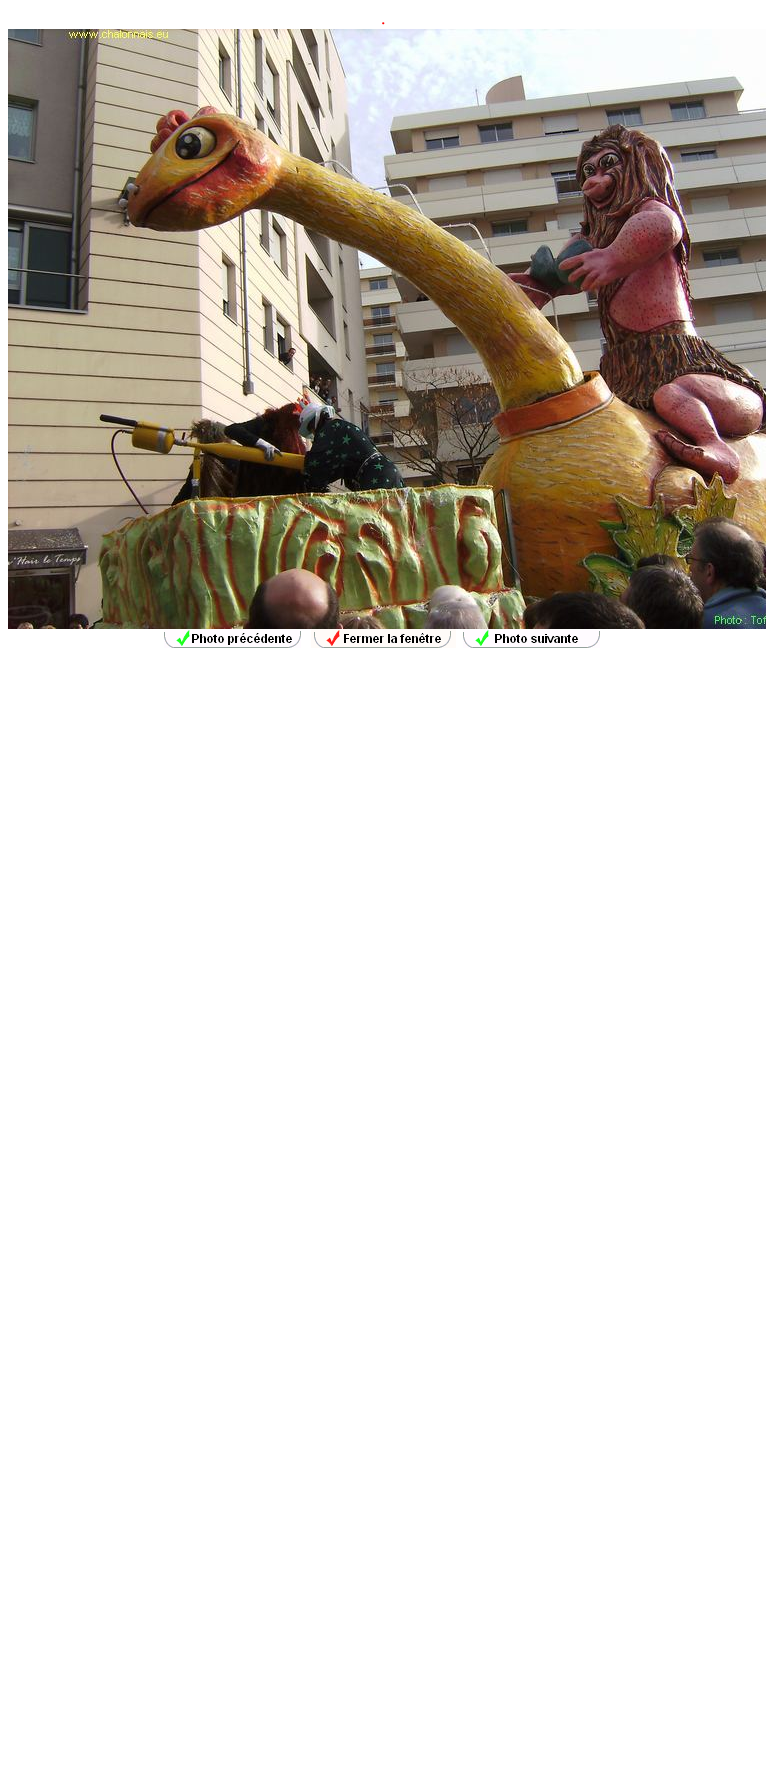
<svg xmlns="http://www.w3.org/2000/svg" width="766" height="1783">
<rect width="100%" height="100%" fill="#fff"/>
<text x="381" y="24" style="font-family:Liberation Serif;font-size:18px;fill:#f00">.</text>
<image x="8" y="29" width="758" height="600" href="media/1.png"/>
<image x="164" y="630" width="137" height="18" href="media/2.png"/>
<image x="311" y="629" width="145" height="19" href="media/3.png"/>
<image x="463" y="630" width="137" height="18" href="media/4.png"/>
</svg>
